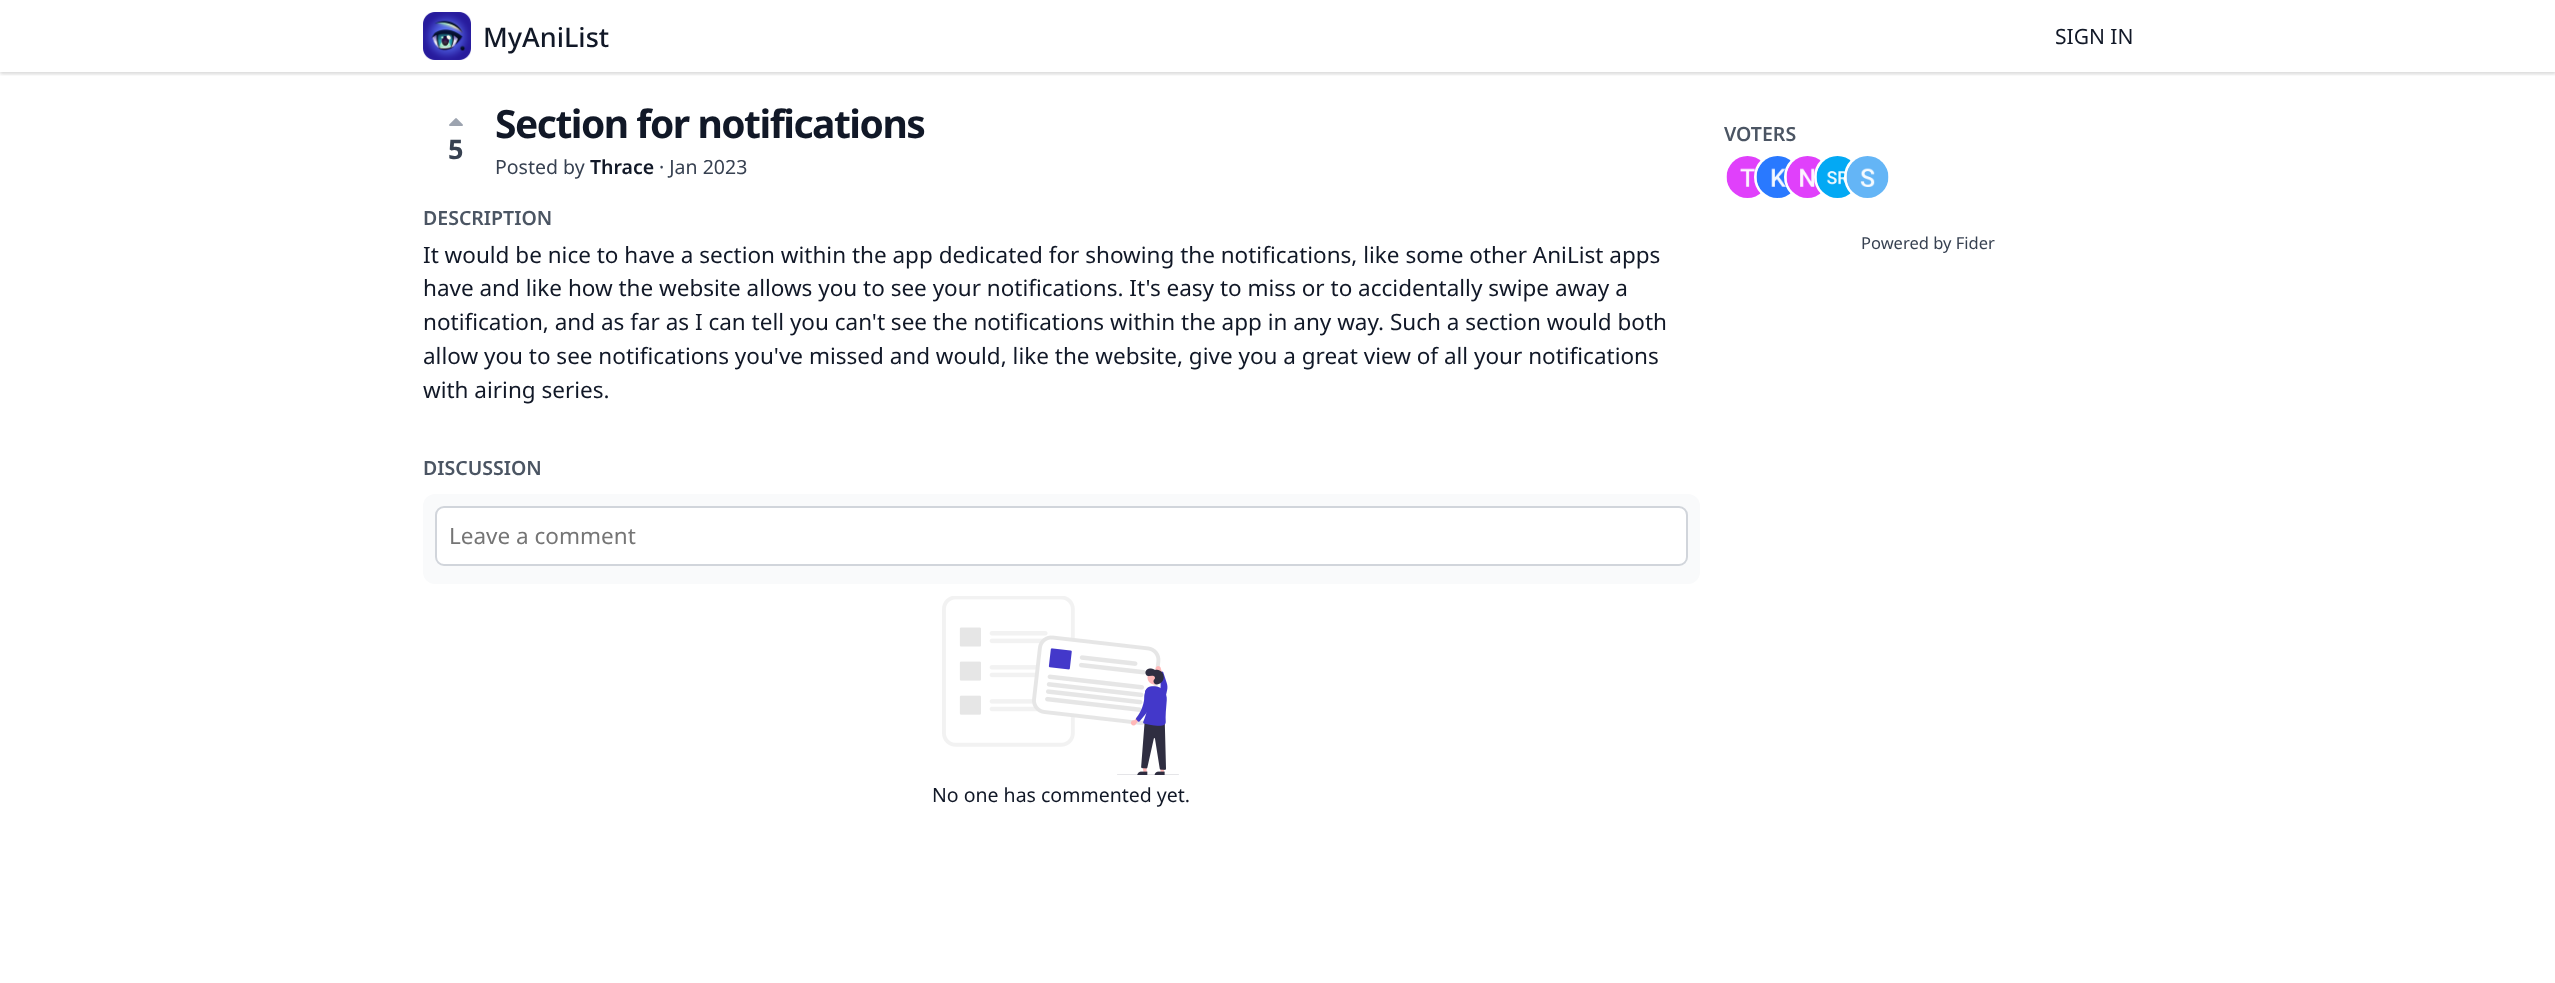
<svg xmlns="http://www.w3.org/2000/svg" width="2555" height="983">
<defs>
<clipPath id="clip1"><rect x="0" y="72" width="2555" height="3"/></clipPath>
<clipPath id="clip2"><rect x="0" y="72" width="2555" height="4"/></clipPath>
</defs>
<rect width="100%" height="100%" fill="#fff"/>
<g clip-path="url(#clip1)">
<rect y="2" width="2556" height="72" fill="#0000000f" filter="blur(1.5px)"/>
</g>
<g clip-path="url(#clip2)">
<rect y="2" width="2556" height="72" fill="#0000001a" filter="blur(2px)"/>
</g>
<image x="423" y="12" width="48" height="48" href="media/1.png"/>
<text x="483" y="47" style="font-family:Noto Sans;font-size:27px;font-weight:500;fill:#111827">MyAniList</text>
<text x="2055" y="44" style="font-family:Noto Sans;font-size:21px;fill:#111827">SIGN IN</text>
<image x="449" y="118" width="14" height="8" href="media/2.png"/>
<text x="448" y="159" style="font-family:Noto Sans;font-size:27px;font-weight:bold;fill:#374151">5</text>
<text x="495" y="138" style="font-family:Noto Sans;font-size:39px;font-weight:bold;letter-spacing:-1.5px;fill:#111827">Section for notifications</text>
<text x="495" y="174" style="font-family:Noto Sans;font-size:19.5px;fill:#374151">Posted by</text>
<text x="590" y="174" style="font-family:Noto Sans;font-size:19.5px;font-weight:600;fill:#111827">Thrace</text>
<text x="659" y="174" style="font-family:Noto Sans;font-size:19.5px;fill:#374151">· Jan 2023</text>
<text x="423" y="225" style="font-family:Noto Sans;font-size:19.5px;font-weight:600;fill:#4b5563">DESCRIPTION</text>
<text x="423" y="263" style="font-family:Noto Sans;font-size:22.5px;fill:#111827">It would be nice to have a section within the app dedicated for showing the notifications, like some other AniList apps</text>
<text x="423" y="296" style="font-family:Noto Sans;font-size:22.5px;fill:#111827">have and like how the website allows you to see your notifications. It's easy to miss or to accidentally swipe away a</text>
<text x="423" y="330" style="font-family:Noto Sans;font-size:22.5px;fill:#111827">notification, and as far as I can tell you can't see the notifications within the app in any way. Such a section would both</text>
<text x="423" y="364" style="font-family:Noto Sans;font-size:22.5px;fill:#111827">allow you to see notifications you've missed and would, like the website, give you a great view of all your notifications</text>
<text x="423" y="398" style="font-family:Noto Sans;font-size:22.5px;fill:#111827">with airing series.</text>
<text x="1724" y="141" style="font-family:Noto Sans;font-size:19.5px;font-weight:600;fill:#4b5563">VOTERS</text>
<image x="1726" y="156" width="37" height="42" href="media/3.png"/>
<circle cx="1778" cy="177" r="22.5" fill="none" stroke="#fff" stroke-width="3"/>
<image x="1756" y="156" width="37" height="42" href="media/4.png"/>
<circle cx="1808" cy="177" r="22.5" fill="none" stroke="#fff" stroke-width="3"/>
<image x="1786" y="156" width="37" height="42" href="media/5.png"/>
<circle cx="1838" cy="177" r="22.5" fill="none" stroke="#fff" stroke-width="3"/>
<image x="1816" y="156" width="37" height="42" href="media/6.png"/>
<circle cx="1868" cy="177" r="22.5" fill="none" stroke="#fff" stroke-width="3"/>
<image x="1846" y="156" width="43" height="42" href="media/7.png"/>
<text x="1861" y="249" style="font-family:Noto Sans;font-size:16.5px;fill:#374151">Powered by Fider</text>
<text x="423" y="475" style="font-family:Noto Sans;font-size:19.5px;font-weight:600;fill:#4b5563">DISCUSSION</text>
<rect x="423" y="494" width="1277" height="90" rx="12" fill="#f9fafb"/>
<rect x="436" y="507" width="1251" height="58" rx="8" fill="#fff" stroke="#d1d5db" stroke-width="2"/>
<text x="449" y="544" style="font-family:Noto Sans;font-size:22.5px;fill:#757575">Leave a comment</text>
<image x="942" y="596" width="237" height="179" href="media/8.png"/>
<text x="932" y="802" style="font-family:Noto Sans;font-size:19.5px;fill:#111827">No one has commented yet.</text>
</svg>
